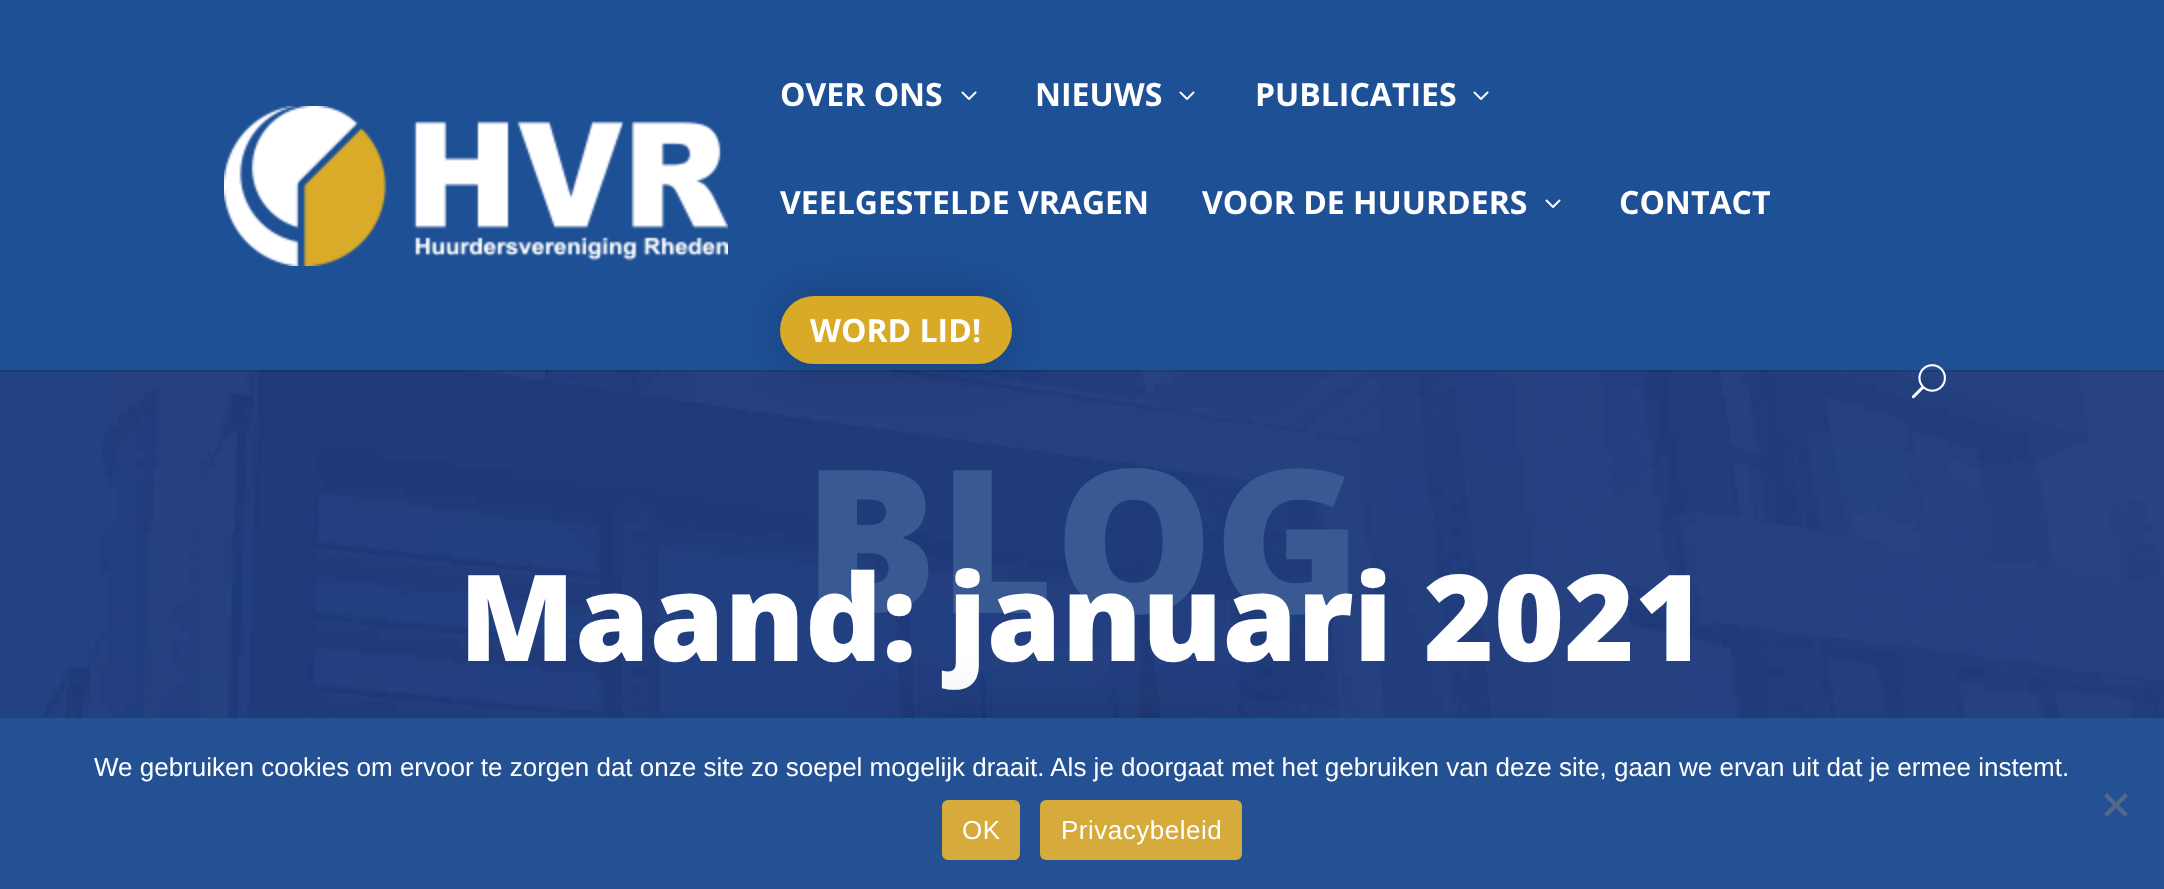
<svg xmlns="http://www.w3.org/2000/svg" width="2164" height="889">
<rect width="100%" height="100%" fill="#fff"/>
<image x="0" y="370" width="2164" height="348" href="media/4.png"/>
<rect y="370" width="2164" height="2" fill="#0000001a"/>
<rect width="2164" height="370" fill="#1e5096"/>
<image x="224" y="106" width="504" height="160" href="media/1.png"/>
<text x="780" y="106" style="font-family:Open Sans;font-size:32px;font-weight:bold;fill:#fff">OVER ONS</text>
<image x="961" y="91" width="16" height="9" href="media/2.png"/>
<text x="1035" y="106" style="font-family:Open Sans;font-size:32px;font-weight:bold;fill:#fff">NIEUWS</text>
<image x="1179" y="91" width="16" height="9" href="media/2.png"/>
<text x="1255" y="106" style="font-family:Open Sans;font-size:32px;font-weight:bold;fill:#fff">PUBLICATIES</text>
<image x="1473" y="91" width="16" height="9" href="media/2.png"/>
<text x="780" y="214" style="font-family:Open Sans;font-size:32px;font-weight:bold;fill:#fff">VEELGESTELDE VRAGEN</text>
<text x="1202" y="214" style="font-family:Open Sans;font-size:32px;font-weight:bold;fill:#fff">VOOR DE HUURDERS</text>
<image x="1545" y="199" width="16" height="9" href="media/2.png"/>
<text x="1619" y="214" style="font-family:Open Sans;font-size:32px;font-weight:bold;fill:#fff">CONTACT</text>
<rect x="780" y="296" width="232" height="68" rx="34" fill="#00000033" filter="blur(25px)"/>
<rect x="780" y="296" width="232" height="68" rx="34" fill="#d8aa28"/>
<text x="810" y="342" style="font-family:Open Sans;font-size:32px;font-weight:bold;fill:#fff">WORD LID!</text>
<image x="1911" y="364" width="35" height="35" href="media/3.png"/>
<text x="803" y="613" style="font-family:Open Sans;font-size:200px;font-weight:800;fill:#385991">BLOG</text>
<text x="459" y="661" style="font-family:Open Sans;font-size:120px;font-weight:800;fill:#fff">Maand: januari 2021</text>
<rect x="898" y="734" width="368" height="84" rx="42" fill="#00000061" filter="blur(35px)"/>
<rect y="718" width="2164" height="171" fill="#235193"/>
<text x="94" y="776" style="font-family:Liberation Sans;font-size:26px;fill:#fff">We gebruiken cookies om ervoor te zorgen dat onze site zo soepel mogelijk draait. Als je doorgaat met het gebruiken van deze site, gaan we ervan uit dat je ermee instemt.</text>
<path d="M2125 793l3 3l-21 21l-3-3z" fill="#52698a"/>
<path d="M2104 796l3-3l21 21l-3 3z" fill="#52698a"/>
<rect x="942" y="800" width="78" height="60" rx="6" fill="#d6ab3b"/>
<text x="962" y="839" style="font-family:Liberation Sans;font-size:26px;letter-spacing:0.5px;fill:#fff">OK</text>
<rect x="1040" y="800" width="202" height="60" rx="6" fill="#d6ab3b"/>
<text x="1061" y="839" style="font-family:Liberation Sans;font-size:26px;letter-spacing:0.5px;fill:#fff">Privacybeleid</text>
</svg>
